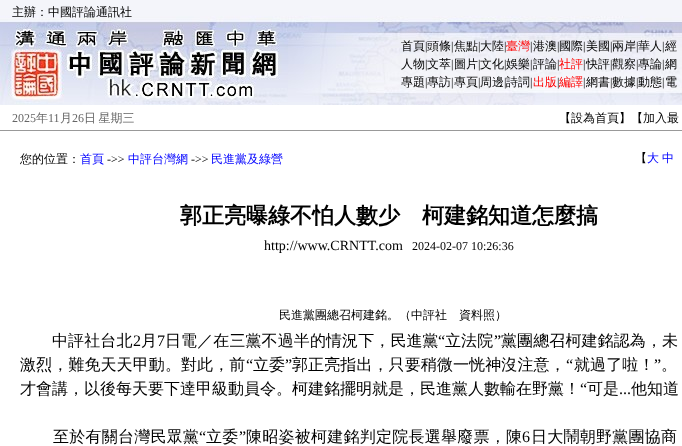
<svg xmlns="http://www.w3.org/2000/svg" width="682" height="446">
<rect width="100%" height="100%" fill="#999"/>
<image x="0" y="0" width="682" height="105" href="media/1.png"/>
<text x="12" y="16" style="font-family:WenQuanYi Zen Hei;font-size:12px;font-weight:500;fill:#000">主辦：中國評論通訊社</text>
<text x="401" y="50" style="font-family:WenQuanYi Zen Hei;font-size:12px;font-weight:500;fill:#000">首頁</text>
<text x="425" y="50" style="font-family:Liberation Serif;font-size:12px;fill:#000">|</text>
<text x="427" y="50" style="font-family:WenQuanYi Zen Hei;font-size:12px;font-weight:500;fill:#000">頭條</text>
<text x="451" y="50" style="font-family:Liberation Serif;font-size:12px;fill:#000">|</text>
<text x="454" y="50" style="font-family:WenQuanYi Zen Hei;font-size:12px;font-weight:500;fill:#000">焦點</text>
<text x="478" y="50" style="font-family:Liberation Serif;font-size:12px;fill:#000">|</text>
<text x="480" y="50" style="font-family:WenQuanYi Zen Hei;font-size:12px;font-weight:500;fill:#000">大陸</text>
<text x="504" y="50" style="font-family:Liberation Serif;font-size:12px;fill:#000">|</text>
<text x="506" y="50" style="font-family:WenQuanYi Zen Hei;font-size:12px;font-weight:500;fill:#f00">臺灣</text>
<text x="530" y="50" style="font-family:Liberation Serif;font-size:12px;fill:#000">|</text>
<text x="533" y="50" style="font-family:WenQuanYi Zen Hei;font-size:12px;font-weight:500;fill:#000">港澳</text>
<text x="557" y="50" style="font-family:Liberation Serif;font-size:12px;fill:#000">|</text>
<text x="559" y="50" style="font-family:WenQuanYi Zen Hei;font-size:12px;font-weight:500;fill:#000">國際</text>
<text x="583" y="50" style="font-family:Liberation Serif;font-size:12px;fill:#000">|</text>
<text x="586" y="50" style="font-family:WenQuanYi Zen Hei;font-size:12px;font-weight:500;fill:#000">美國</text>
<text x="610" y="50" style="font-family:Liberation Serif;font-size:12px;fill:#000">|</text>
<text x="612" y="50" style="font-family:WenQuanYi Zen Hei;font-size:12px;font-weight:500;fill:#000">兩岸</text>
<text x="636" y="50" style="font-family:Liberation Serif;font-size:12px;fill:#000">|</text>
<text x="638" y="50" style="font-family:WenQuanYi Zen Hei;font-size:12px;font-weight:500;fill:#000">華人</text>
<text x="662" y="50" style="font-family:Liberation Serif;font-size:12px;fill:#000">|</text>
<text x="665" y="50" style="font-family:WenQuanYi Zen Hei;font-size:12px;font-weight:500;fill:#000">經</text>
<text x="401" y="68" style="font-family:WenQuanYi Zen Hei;font-size:12px;font-weight:500;fill:#000">人物</text>
<text x="425" y="68" style="font-family:Liberation Serif;font-size:12px;fill:#000">|</text>
<text x="427" y="68" style="font-family:WenQuanYi Zen Hei;font-size:12px;font-weight:500;fill:#000">文萃</text>
<text x="451" y="68" style="font-family:Liberation Serif;font-size:12px;fill:#000">|</text>
<text x="454" y="68" style="font-family:WenQuanYi Zen Hei;font-size:12px;font-weight:500;fill:#000">圖片</text>
<text x="478" y="68" style="font-family:Liberation Serif;font-size:12px;fill:#000">|</text>
<text x="480" y="68" style="font-family:WenQuanYi Zen Hei;font-size:12px;font-weight:500;fill:#000">文化</text>
<text x="504" y="68" style="font-family:Liberation Serif;font-size:12px;fill:#000">|</text>
<text x="506" y="68" style="font-family:WenQuanYi Zen Hei;font-size:12px;font-weight:500;fill:#000">娛樂</text>
<text x="530" y="68" style="font-family:Liberation Serif;font-size:12px;fill:#000">|</text>
<text x="533" y="68" style="font-family:WenQuanYi Zen Hei;font-size:12px;font-weight:500;fill:#000">評論</text>
<text x="557" y="68" style="font-family:Liberation Serif;font-size:12px;fill:#000">|</text>
<text x="559" y="68" style="font-family:WenQuanYi Zen Hei;font-size:12px;font-weight:500;fill:#f00">社評</text>
<text x="583" y="68" style="font-family:Liberation Serif;font-size:12px;fill:#000">|</text>
<text x="586" y="68" style="font-family:WenQuanYi Zen Hei;font-size:12px;font-weight:500;fill:#000">快評</text>
<text x="610" y="68" style="font-family:Liberation Serif;font-size:12px;fill:#000">|</text>
<text x="612" y="68" style="font-family:WenQuanYi Zen Hei;font-size:12px;font-weight:500;fill:#000">觀察</text>
<text x="636" y="68" style="font-family:Liberation Serif;font-size:12px;fill:#000">|</text>
<text x="638" y="68" style="font-family:WenQuanYi Zen Hei;font-size:12px;font-weight:500;fill:#000">專論</text>
<text x="662" y="68" style="font-family:Liberation Serif;font-size:12px;fill:#000">|</text>
<text x="665" y="68" style="font-family:WenQuanYi Zen Hei;font-size:12px;font-weight:500;fill:#000">網</text>
<text x="401" y="86" style="font-family:WenQuanYi Zen Hei;font-size:12px;font-weight:500;fill:#000">專題</text>
<text x="425" y="86" style="font-family:Liberation Serif;font-size:12px;fill:#000">|</text>
<text x="427" y="86" style="font-family:WenQuanYi Zen Hei;font-size:12px;font-weight:500;fill:#000">專訪</text>
<text x="451" y="86" style="font-family:Liberation Serif;font-size:12px;fill:#000">|</text>
<text x="454" y="86" style="font-family:WenQuanYi Zen Hei;font-size:12px;font-weight:500;fill:#000">專頁</text>
<text x="478" y="86" style="font-family:Liberation Serif;font-size:12px;fill:#000">|</text>
<text x="480" y="86" style="font-family:WenQuanYi Zen Hei;font-size:12px;font-weight:500;fill:#000">周邊</text>
<text x="504" y="86" style="font-family:Liberation Serif;font-size:12px;fill:#000">|</text>
<text x="506" y="86" style="font-family:WenQuanYi Zen Hei;font-size:12px;font-weight:500;fill:#000">詩詞</text>
<text x="530" y="86" style="font-family:Liberation Serif;font-size:12px;fill:#000">|</text>
<text x="533" y="86" style="font-family:WenQuanYi Zen Hei;font-size:12px;font-weight:500;fill:#f00">出版</text>
<text x="557" y="86" style="font-family:Liberation Serif;font-size:12px;fill:#000">|</text>
<text x="559" y="86" style="font-family:WenQuanYi Zen Hei;font-size:12px;font-weight:500;fill:#f00">編譯</text>
<text x="583" y="86" style="font-family:Liberation Serif;font-size:12px;fill:#000">|</text>
<text x="586" y="86" style="font-family:WenQuanYi Zen Hei;font-size:12px;font-weight:500;fill:#000">網書</text>
<text x="610" y="86" style="font-family:Liberation Serif;font-size:12px;fill:#000">|</text>
<text x="612" y="86" style="font-family:WenQuanYi Zen Hei;font-size:12px;font-weight:500;fill:#000">數據</text>
<text x="636" y="86" style="font-family:Liberation Serif;font-size:12px;fill:#000">|</text>
<text x="638" y="86" style="font-family:WenQuanYi Zen Hei;font-size:12px;font-weight:500;fill:#000">動態</text>
<text x="662" y="86" style="font-family:Liberation Serif;font-size:12px;fill:#000">|</text>
<text x="665" y="86" style="font-family:WenQuanYi Zen Hei;font-size:12px;font-weight:500;fill:#000">電</text>
<rect y="105" width="682" height="25" fill="#fff"/>
<text x="12" y="122" style="font-family:Liberation Serif;font-size:12px;fill:#666">2025</text>
<text x="36" y="122" style="font-family:WenQuanYi Zen Hei;font-size:12px;font-weight:500;fill:#666">年</text>
<text x="48" y="122" style="font-family:Liberation Serif;font-size:12px;fill:#666">11</text>
<text x="60" y="122" style="font-family:WenQuanYi Zen Hei;font-size:12px;font-weight:500;fill:#666">月</text>
<text x="72" y="122" style="font-family:Liberation Serif;font-size:12px;fill:#666">26</text>
<text x="84" y="122" word-spacing="-1" style="font-family:WenQuanYi Zen Hei;font-size:12px;font-weight:500;fill:#666">日 星期三</text>
<text x="559" y="122" style="font-family:WenQuanYi Zen Hei;font-size:12px;font-weight:500;fill:#000">【設為首頁】【加入最</text>
<rect y="131" width="682" height="315" fill="#fff"/>
<text x="20" y="163" style="font-family:WenQuanYi Zen Hei;font-size:12px;font-weight:500;fill:#000">您的位置：</text>
<text x="80" y="163" style="font-family:WenQuanYi Zen Hei;font-size:12px;font-weight:500;fill:#00f">首頁</text>
<text x="107" y="163" style="font-family:Liberation Serif;font-size:12px;fill:#000">-&gt;&gt;</text>
<text x="128" y="163" style="font-family:WenQuanYi Zen Hei;font-size:12px;font-weight:500;fill:#00f">中評台灣網</text>
<text x="191" y="163" style="font-family:Liberation Serif;font-size:12px;fill:#000">-&gt;&gt;</text>
<text x="211" y="163" style="font-family:WenQuanYi Zen Hei;font-size:12px;font-weight:500;fill:#00f">民進黨及綠營</text>
<text x="635" y="162" style="font-family:WenQuanYi Zen Hei;font-size:12px;font-weight:500;fill:#000">【</text>
<text x="647" y="162" style="font-family:WenQuanYi Zen Hei;font-size:12px;font-weight:500;fill:#00f">大</text>
<text x="662" y="162" style="font-family:WenQuanYi Zen Hei;font-size:12px;font-weight:500;fill:#00f">中</text>
<text x="180" y="223" style="font-family:WenQuanYi Zen Hei;font-size:22px;font-weight:bold;fill:#000">郭正亮曝綠不怕人數少　柯建銘知道怎麼搞</text>
<text x="264" y="250" style="font-family:Liberation Serif;font-size:14px;fill:#000">http://www.CRNTT.com</text>
<text x="412" y="250" style="font-family:Liberation Serif;font-size:12px;fill:#000">2024-02-07 10:26:36</text>
<text x="279" y="319" style="font-family:WenQuanYi Zen Hei;font-size:12px;font-weight:500;fill:#000">民進黨團總召柯建銘。（中評社　資料照）</text>
<text x="52" y="346" style="font-family:WenQuanYi Zen Hei;font-size:16px;font-weight:500;letter-spacing:0.1px;fill:#000">中評社台北</text>
<text x="133" y="346" style="font-family:Liberation Serif;font-size:16px;letter-spacing:0.1px;fill:#000">2</text>
<text x="141" y="346" style="font-family:WenQuanYi Zen Hei;font-size:16px;font-weight:500;letter-spacing:0.1px;fill:#000">月</text>
<text x="157" y="346" style="font-family:Liberation Serif;font-size:16px;letter-spacing:0.1px;fill:#000">7</text>
<text x="165" y="346" style="font-family:WenQuanYi Zen Hei;font-size:16px;font-weight:500;letter-spacing:0.1px;fill:#000">日電／在三黨不過半的情況下，民進黨</text>
<text x="438" y="346" style="font-family:Liberation Serif;font-size:16px;letter-spacing:0.1px;fill:#000">“</text>
<text x="445" y="346" style="font-family:WenQuanYi Zen Hei;font-size:16px;font-weight:500;letter-spacing:0.1px;fill:#000">立法院</text>
<text x="494" y="346" style="font-family:Liberation Serif;font-size:16px;letter-spacing:0.1px;fill:#000">”</text>
<text x="501" y="346" style="font-family:WenQuanYi Zen Hei;font-size:16px;font-weight:500;letter-spacing:0.1px;fill:#000">黨團總召柯建銘認為，未</text>
<text x="20" y="370" style="font-family:WenQuanYi Zen Hei;font-size:16px;font-weight:500;letter-spacing:0.1px;fill:#000">激烈，難免天天甲動。對此，前</text>
<text x="246" y="370" style="font-family:Liberation Serif;font-size:16px;letter-spacing:0.1px;fill:#000">“</text>
<text x="253" y="370" style="font-family:WenQuanYi Zen Hei;font-size:16px;font-weight:500;letter-spacing:0.1px;fill:#000">立委</text>
<text x="285" y="370" style="font-family:Liberation Serif;font-size:16px;letter-spacing:0.1px;fill:#000">”</text>
<text x="292" y="370" style="font-family:WenQuanYi Zen Hei;font-size:16px;font-weight:500;letter-spacing:0.1px;fill:#000">郭正亮指出，只要稍微一恍神沒注意，</text>
<text x="566" y="370" style="font-family:Liberation Serif;font-size:16px;letter-spacing:0.1px;fill:#000">“</text>
<text x="574" y="370" style="font-family:WenQuanYi Zen Hei;font-size:16px;font-weight:500;letter-spacing:0.1px;fill:#000">就過了啦！</text>
<text x="654" y="370" style="font-family:Liberation Serif;font-size:16px;letter-spacing:0.1px;fill:#000">”</text>
<text x="661" y="370" style="font-family:WenQuanYi Zen Hei;font-size:16px;font-weight:500;letter-spacing:0.1px;fill:#000">。</text>
<text x="20" y="394" style="font-family:WenQuanYi Zen Hei;font-size:16px;font-weight:500;fill:#000">才會講，以後每天要下達甲級動員令。柯建銘擺明就是，民進黨人數輸在野黨！</text>
<text x="580" y="394" style="font-family:Liberation Serif;font-size:16px;fill:#000">“</text>
<text x="587" y="394" style="font-family:WenQuanYi Zen Hei;font-size:16px;font-weight:500;fill:#000">可是</text>
<text x="631" y="394" style="font-family:WenQuanYi Zen Hei;font-size:16px;font-weight:500;fill:#000">他知道</text>
<text x="619" y="394" style="font-family:Liberation Serif;font-size:16px;fill:#000">...</text>
<text x="53" y="442" style="font-family:WenQuanYi Zen Hei;font-size:16px;font-weight:500;letter-spacing:0.25px;fill:#000">至於有關台灣民眾黨</text>
<text x="199" y="442" style="font-family:Liberation Serif;font-size:16px;letter-spacing:0.25px;fill:#000">“</text>
<text x="206" y="442" style="font-family:WenQuanYi Zen Hei;font-size:16px;font-weight:500;letter-spacing:0.25px;fill:#000">立委</text>
<text x="239" y="442" style="font-family:Liberation Serif;font-size:16px;letter-spacing:0.25px;fill:#000">”</text>
<text x="246" y="442" style="font-family:WenQuanYi Zen Hei;font-size:16px;font-weight:500;letter-spacing:0.25px;fill:#000">陳昭姿被柯建銘判定院長選舉廢票，陳</text>
<text x="522" y="442" style="font-family:Liberation Serif;font-size:16px;letter-spacing:0.25px;fill:#000">6</text>
<text x="531" y="442" style="font-family:WenQuanYi Zen Hei;font-size:16px;font-weight:500;letter-spacing:0.25px;fill:#000">日大鬧朝野黨團協商</text>
</svg>
